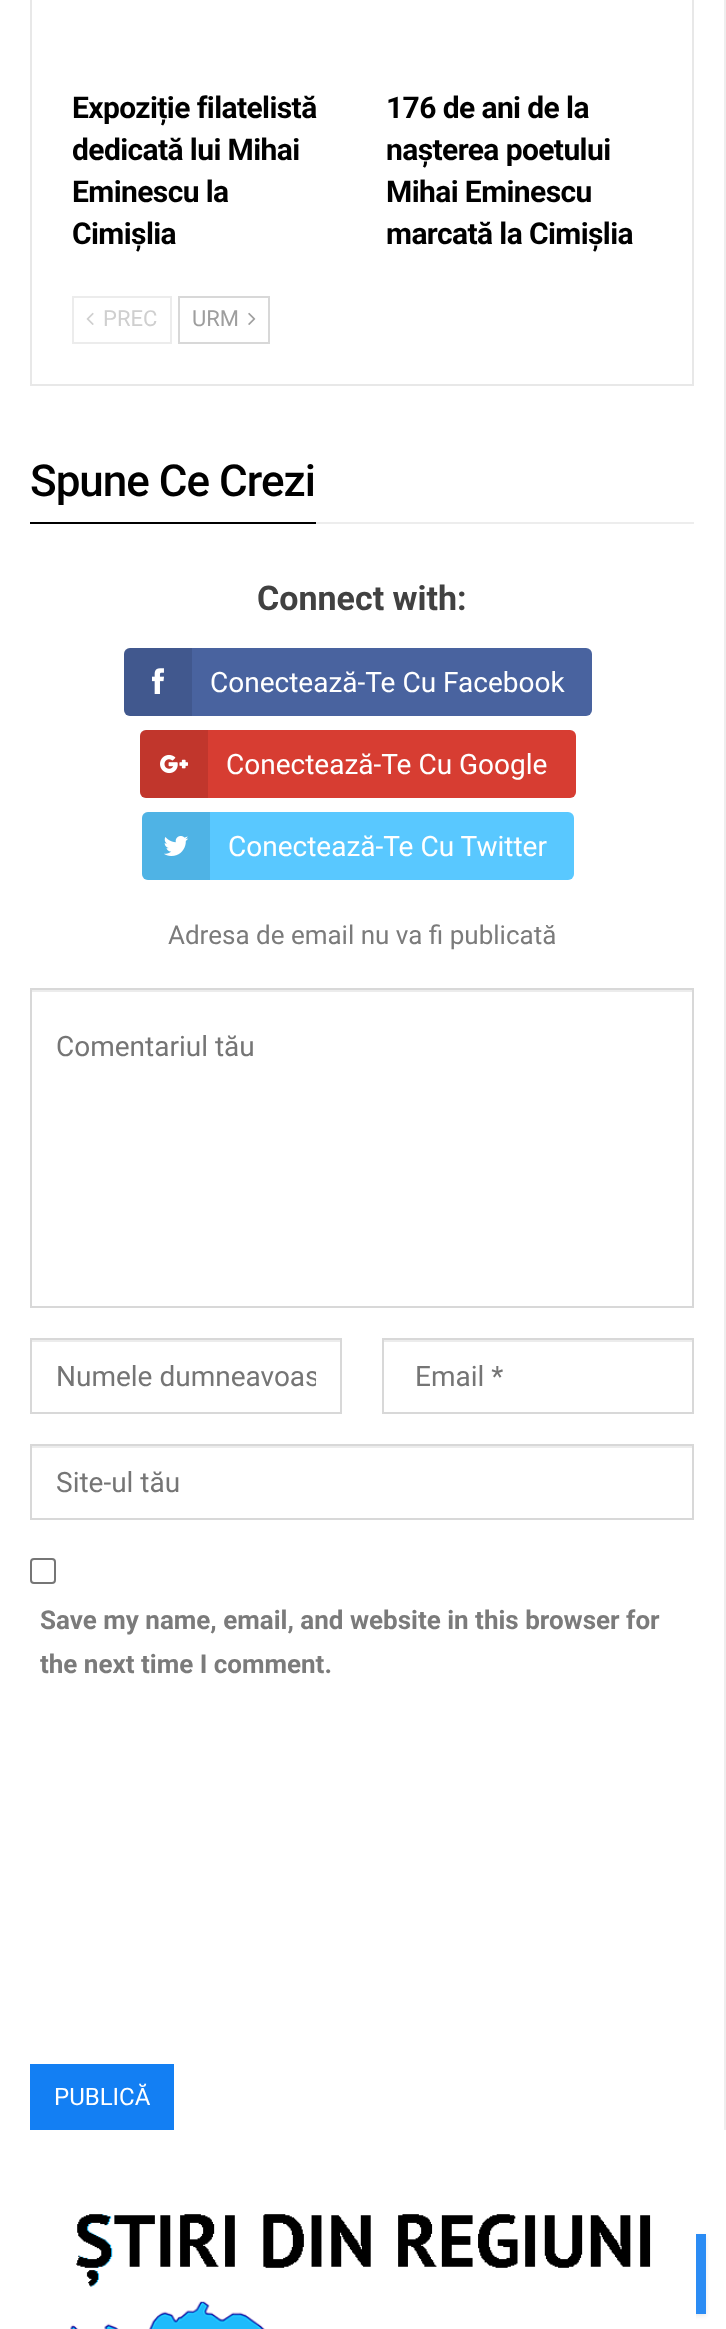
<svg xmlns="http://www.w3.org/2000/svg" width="726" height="2329">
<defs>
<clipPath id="clip1"><rect x="56" y="1360" width="260" height="32"/></clipPath>
</defs>
<rect width="100%" height="100%" fill="#fff"/>
<rect x="724" width="2" height="2130" fill="#eee"/>
<rect x="31" y="-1" width="662" height="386" fill="none" stroke="#e8e8e8" stroke-width="2"/>
<text x="72" y="118" style="font-family:Roboto;font-size:30px;font-weight:bold;letter-spacing:-0.6px;fill:#000">Expoziție filatelistă</text>
<text x="72" y="160" style="font-family:Roboto;font-size:30px;font-weight:bold;letter-spacing:-0.6px;fill:#000">dedicată lui Mihai</text>
<text x="72" y="202" style="font-family:Roboto;font-size:30px;font-weight:bold;letter-spacing:-0.6px;fill:#000">Eminescu la</text>
<text x="72" y="244" style="font-family:Roboto;font-size:30px;font-weight:bold;letter-spacing:-0.6px;fill:#000">Cimișlia</text>
<text x="386" y="118" style="font-family:Roboto;font-size:30px;font-weight:bold;letter-spacing:-0.6px;fill:#000">176 de ani de la</text>
<text x="386" y="160" style="font-family:Roboto;font-size:30px;font-weight:bold;letter-spacing:-0.6px;fill:#000">nașterea poetului</text>
<text x="386" y="202" style="font-family:Roboto;font-size:30px;font-weight:bold;letter-spacing:-0.6px;fill:#000">Mihai Eminescu</text>
<text x="386" y="244" style="font-family:Roboto;font-size:30px;font-weight:bold;letter-spacing:-0.6px;fill:#000">marcată la Cimișlia</text>
<rect x="73" y="297" width="98" height="46" fill="none" stroke="#ececec" stroke-width="2"/>
<image x="86" y="312" width="8" height="13" href="media/1.png"/>
<text x="103" y="326" style="font-family:Roboto;font-size:22px;fill:#cfcfcf">PREC</text>
<rect x="179" y="297" width="90" height="46" fill="none" stroke="#d8d8d8" stroke-width="2"/>
<text x="192" y="326" style="font-family:Roboto;font-size:22px;fill:#9e9e9e">URM</text>
<image x="248" y="312" width="8" height="13" href="media/2.png"/>
<text x="30" y="496" style="font-family:Roboto;font-size:44px;font-weight:500;letter-spacing:-1px;fill:#000">Spune Ce Crezi</text>
<rect x="30" y="522" width="286" height="2" fill="#000"/>
<rect x="316" y="522" width="378" height="2" fill="#ededed"/>
<text x="257" y="610" style="font-family:Roboto;font-size:34px;font-weight:bold;fill:#414141">Connect with:</text>
<rect x="124" y="648" width="468" height="68" rx="6" fill="#49639f"/>
<path d="M130 648h62v68h-62c-3.5 0-6-2.5-6-6v-56c0-3.5 2.5-6 6-6z" fill="#0000001a"/>
<image x="152" y="668" width="12" height="26" href="media/3.png"/>
<text x="210" y="692" style="font-family:Roboto;font-size:28px;fill:#fff">Conectează-Te Cu Facebook</text>
<rect x="140" y="730" width="436" height="68" rx="6" fill="#d73d32"/>
<path d="M146 730h62v68h-62c-3.5 0-6-2.5-6-6v-56c0-3.5 2.5-6 6-6z" fill="#0000001a"/>
<image x="160" y="754" width="28" height="20" href="media/4.png"/>
<text x="226" y="774" style="font-family:Roboto;font-size:28px;fill:#fff">Conectează-Te Cu Google</text>
<rect x="142" y="812" width="432" height="68" rx="6" fill="#59c8ff"/>
<path d="M148 812h62v68h-62c-3.5 0-6-2.5-6-6v-56c0-3.5 2.5-6 6-6z" fill="#0000001a"/>
<image x="164" y="836" width="25" height="20" href="media/5.png"/>
<text x="228" y="856" style="font-family:Roboto;font-size:28px;fill:#fff">Conectează-Te Cu Twitter</text>
<text x="168" y="944" style="font-family:Roboto;font-size:26px;fill:#7b7b7b">Adresa de email nu va fi publicată</text>
<rect x="32" y="990" width="660" height="2" fill="#ececec"/>
<rect x="31" y="989" width="662" height="318" fill="none" stroke="#d8d8d8" stroke-width="2"/>
<text x="56" y="1056" style="font-family:Roboto;font-size:28px;fill:#757575">Comentariul tău</text>
<rect x="32" y="1340" width="308" height="2" fill="#ececec"/>
<rect x="31" y="1339" width="310" height="74" fill="none" stroke="#d8d8d8" stroke-width="2"/>
<g clip-path="url(#clip1)">
<text x="56" y="1386" style="font-family:Roboto;font-size:28px;fill:#757575">Numele dumneavoas</text>
</g>
<rect x="384" y="1340" width="308" height="2" fill="#ececec"/>
<rect x="383" y="1339" width="310" height="74" fill="none" stroke="#d8d8d8" stroke-width="2"/>
<text x="415" y="1386" style="font-family:Roboto;font-size:28px;fill:#757575">Email *</text>
<rect x="32" y="1446" width="660" height="2" fill="#ececec"/>
<rect x="31" y="1445" width="662" height="74" fill="none" stroke="#d8d8d8" stroke-width="2"/>
<text x="56" y="1492" style="font-family:Roboto;font-size:28px;fill:#757575">Site-ul tău</text>
<rect x="31" y="1559" width="24" height="24" rx="3" fill="none" stroke="#767676" stroke-width="2"/>
<text x="40" y="1629" style="font-family:Roboto;font-size:26px;font-weight:bold;fill:#7b7b7b">Save my name, email, and website in this browser for</text>
<text x="40" y="1673" style="font-family:Roboto;font-size:26px;font-weight:bold;fill:#7b7b7b">the next time I comment.</text>
<rect x="30" y="2064" width="144" height="66" fill="#137ff3"/>
<text x="54" y="2105" style="font-family:Roboto;font-size:24px;fill:#fff">PUBLICĂ</text>
<rect x="626" y="2236" width="80" height="80" fill="#1a1a1a17" filter="blur(2px)"/>
<image x="70" y="2214" width="626" height="115" href="media/6.png"/>
<rect x="696" y="2234" width="10" height="80" fill="#2b8cf4"/>
</svg>
